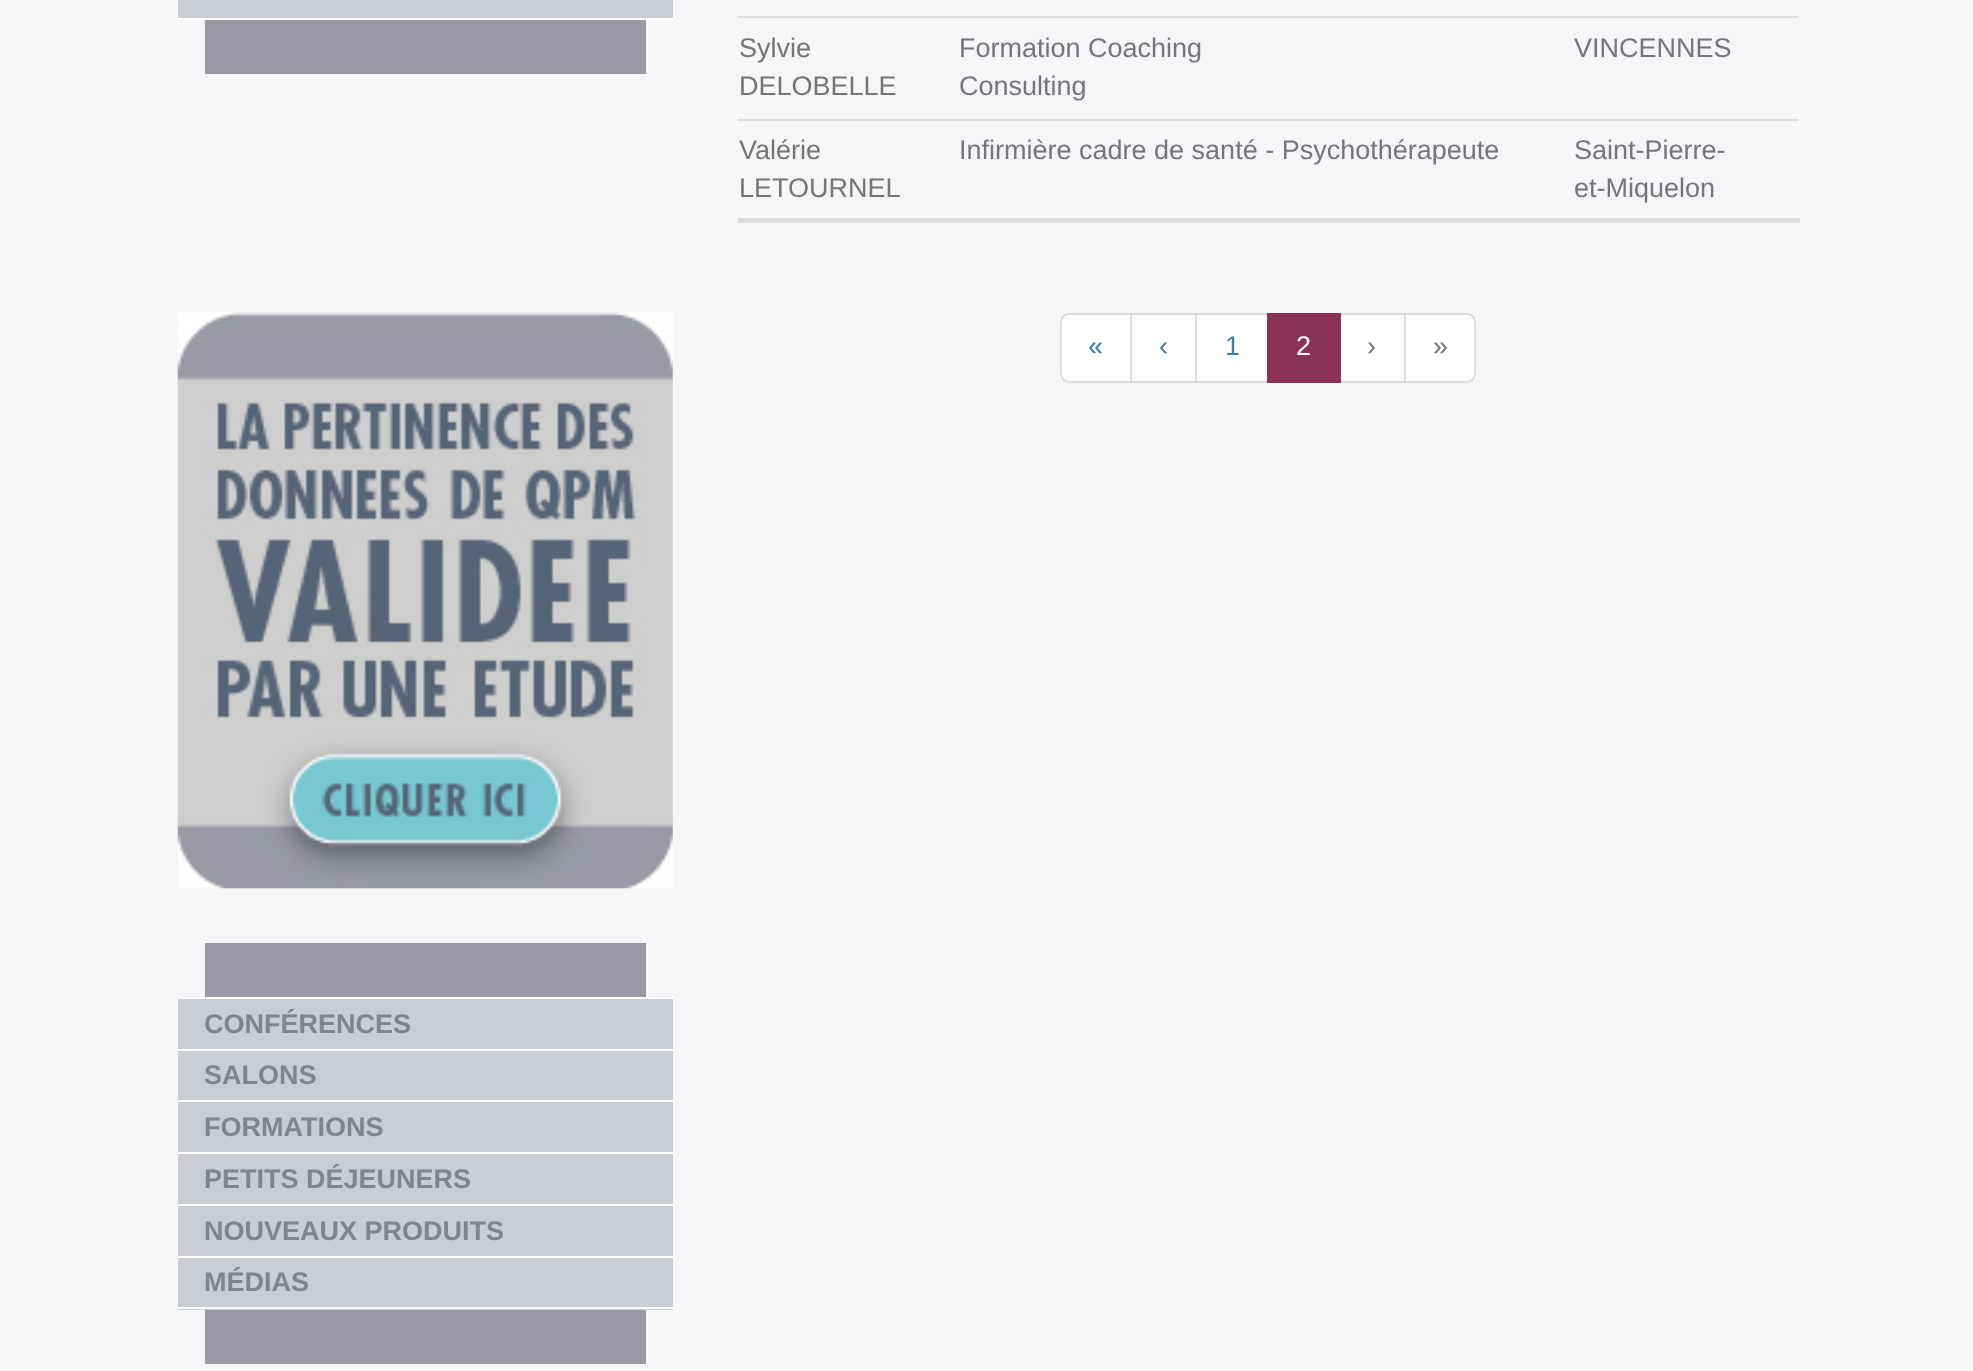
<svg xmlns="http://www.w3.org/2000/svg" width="1973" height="1371">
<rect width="100%" height="100%" fill="#f4f6f7"/>
<text x="739" y="57" style="font-family:Liberation Sans;font-size:27px;fill:#757575">Sylvie</text>
<text x="739" y="95" style="font-family:Liberation Sans;font-size:27px;fill:#757575">DELOBELLE</text>
<text x="959" y="57" style="font-family:Liberation Sans;font-size:27px;fill:#75757f">Formation Coaching</text>
<text x="959" y="95" style="font-family:Liberation Sans;font-size:27px;fill:#75757f">Consulting</text>
<rect x="738" y="16" width="1060" height="2" fill="#ddd"/>
<text x="1574" y="57" style="font-family:Liberation Sans;font-size:27px;fill:#75757f">VINCENNES</text>
<text x="739" y="159" style="font-family:Liberation Sans;font-size:27px;fill:#757575">Valérie</text>
<text x="739" y="197" style="font-family:Liberation Sans;font-size:27px;fill:#757575">LETOURNEL</text>
<text x="959" y="159" style="font-family:Liberation Sans;font-size:27px;fill:#75757f">Infirmière cadre de santé - Psychothérapeute</text>
<rect x="738" y="119" width="1060" height="2" fill="#ddd"/>
<text x="1574" y="159" style="font-family:Liberation Sans;font-size:27px;fill:#75757f">Saint-Pierre-</text>
<text x="1574" y="197" style="font-family:Liberation Sans;font-size:27px;fill:#75757f">et-Miquelon</text>
<rect x="738" y="218" width="1062" height="5" fill="#ddd"/>
<path d="M1069 314h62v68h-62c-4.5 0-8-3.5-8-8v-52c0-4.5 3.5-8 8-8z" fill="#fff" stroke="#ddd" stroke-width="2"/>
<text x="1088" y="355" style="font-family:Liberation Sans;font-size:27px;fill:#337ab7">«</text>
<rect x="1131" y="314" width="65" height="68" fill="#fff" stroke="#ddd" stroke-width="2"/>
<text x="1159" y="355" style="font-family:Liberation Sans;font-size:27px;fill:#337ab7">‹</text>
<rect x="1196" y="314" width="72" height="68" fill="#fff" stroke="#ddd" stroke-width="2"/>
<text x="1225" y="355" style="font-family:Liberation Sans;font-size:27px;fill:#337ab7">1</text>
<rect x="1340" y="314" width="65" height="68" fill="#fff" stroke="#ddd" stroke-width="2"/>
<rect x="1267" y="313" width="74" height="70" fill="#893255"/>
<text x="1296" y="355" style="font-family:Liberation Sans;font-size:27px;fill:#fff">2</text>
<text x="1367" y="355" style="font-family:Liberation Sans;font-size:27px;fill:#757575">›</text>
<path d="M1405 314h62c4.5 0 8 3.5 8 8v52c0 4.5-3.5 8-8 8h-62z" fill="#fff" stroke="#ddd" stroke-width="2"/>
<text x="1433" y="355" style="font-family:Liberation Sans;font-size:27px;fill:#757575">»</text>
<rect x="205" y="20" width="441" height="54" fill="#9999a5"/>
<rect x="178" width="495" height="18" fill="#c9ccd5"/>
<rect x="178" y="18" width="495" height="2" fill="#fff"/>
<image x="177" y="312" width="496" height="577" href="media/1.png"/>
<rect x="205" y="943" width="441" height="54" fill="#9999a5"/>
<rect x="205" y="1310" width="441" height="54" fill="#9999a5"/>
<rect x="178" y="999" width="495" height="50" fill="#c9ccd5"/>
<rect x="178" y="997" width="495" height="2" fill="#fff"/>
<rect x="178" y="1049" width="495" height="2" fill="#fff"/>
<text x="204" y="1033" style="font-family:Liberation Sans;font-size:27px;font-weight:bold;fill:#82838d">CONFÉRENCES</text>
<rect x="178" y="1051" width="495" height="101" fill="#c9ccd5"/>
<rect x="178" y="1100" width="495" height="2" fill="#fff"/>
<text x="204" y="1084" style="font-family:Liberation Sans;font-size:27px;font-weight:bold;fill:#82838d">SALONS</text>
<rect x="178" y="1152" width="495" height="2" fill="#fff"/>
<text x="204" y="1136" style="font-family:Liberation Sans;font-size:27px;font-weight:bold;fill:#82838d">FORMATIONS</text>
<rect x="178" y="1154" width="495" height="50" fill="#c9ccd5"/>
<rect x="178" y="1204" width="495" height="2" fill="#fff"/>
<text x="204" y="1188" style="font-family:Liberation Sans;font-size:27px;font-weight:bold;fill:#82838d">PETITS DÉJEUNERS</text>
<rect x="178" y="1206" width="495" height="50" fill="#c9ccd5"/>
<rect x="178" y="1256" width="495" height="2" fill="#fff"/>
<text x="204" y="1240" style="font-family:Liberation Sans;font-size:27px;font-weight:bold;fill:#82838d">NOUVEAUX PRODUITS</text>
<rect x="178" y="1258" width="495" height="52" fill="#c9ccd5"/>
<rect x="178" y="1307" width="495" height="2" fill="#fff"/>
<text x="204" y="1291" style="font-family:Liberation Sans;font-size:27px;font-weight:bold;fill:#82838d">MÉDIAS</text>
</svg>
